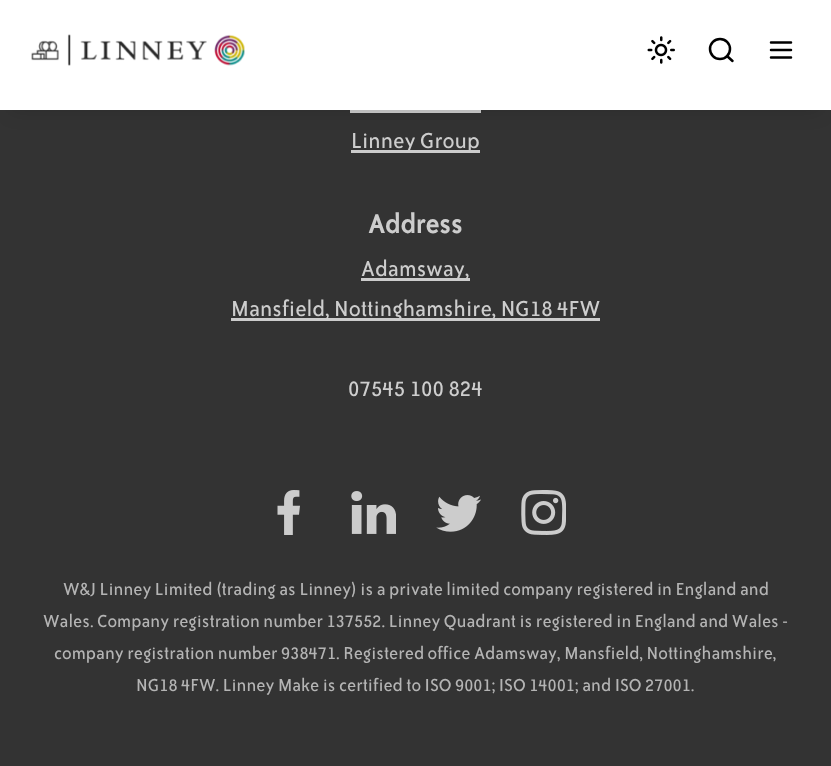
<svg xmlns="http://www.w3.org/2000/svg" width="831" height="766">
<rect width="100%" height="100%" fill="#333"/>
<rect x="350" y="110" width="131" height="3" fill="#ccc"/>
<rect x="10" y="20" width="811" height="90" fill="#00000026" filter="blur(10px)"/>
<rect width="831" height="110" fill="#fff"/>
<image x="31" y="34" width="214" height="32" href="media/1.png"/>
<image x="647" y="36" width="28" height="28" href="media/2.png"/>
<path d="M732.5 61l-5.5-5" fill="none" stroke="#000" stroke-width="2.5" stroke-linecap="round" stroke-linejoin="round"/>
<circle cx="720" cy="49" r="10" fill="none" stroke="#000" stroke-width="2.5"/>
<path d="M771 50h20m-20 7.5h20m-20-15h20" fill="none" stroke="#000" stroke-width="2.5" stroke-linecap="round" stroke-linejoin="round"/>
<rect x="351" y="150" width="129" height="3" fill="#ccc"/>
<text x="351" y="148" style="font-family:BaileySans;font-size:25px;fill:#cdcdcd">Linney Group</text>
<text x="368" y="233" style="font-family:BaileySans;font-size:30px;font-weight:bold;fill:#cdcdcd">Address</text>
<rect x="361" y="278" width="109" height="3" fill="#ccc"/>
<text x="361" y="276" style="font-family:BaileySans;font-size:25px;fill:#cdcdcd">Adamsway,</text>
<rect x="231" y="318" width="369" height="3" fill="#ccc"/>
<text x="231" y="316" style="font-family:BaileySans;font-size:25px;fill:#cdcdcd">Mansfield, Nottinghamshire, NG18 4FW</text>
<text x="348" y="396" style="font-family:BaileySans;font-size:25px;fill:#cdcdcd">07545 100 824</text>
<image x="277" y="490" width="23" height="45" href="media/3.png"/>
<image x="351" y="491" width="45" height="43" href="media/4.png"/>
<image x="436" y="495" width="45" height="37" href="media/5.png"/>
<image x="521" y="490" width="45" height="45" href="media/6.png"/>
<text x="63" y="595" style="font-family:BaileySans;font-size:20px;fill:#b4b4b4">W&amp;J Linney Limited (trading as Linney) is a private limited company registered in England and</text>
<text x="43" y="627" style="font-family:BaileySans;font-size:20px;fill:#b4b4b4">Wales. Company registration number 137552. Linney Quadrant is registered in England and Wales -</text>
<text x="54" y="659" style="font-family:BaileySans;font-size:20px;fill:#b4b4b4">company registration number 938471. Registered office Adamsway, Mansfield, Nottinghamshire,</text>
<text x="136" y="691" style="font-family:BaileySans;font-size:20px;fill:#b4b4b4">NG18 4FW. Linney Make is certified to ISO 9001; ISO 14001; and ISO 27001.</text>
</svg>
